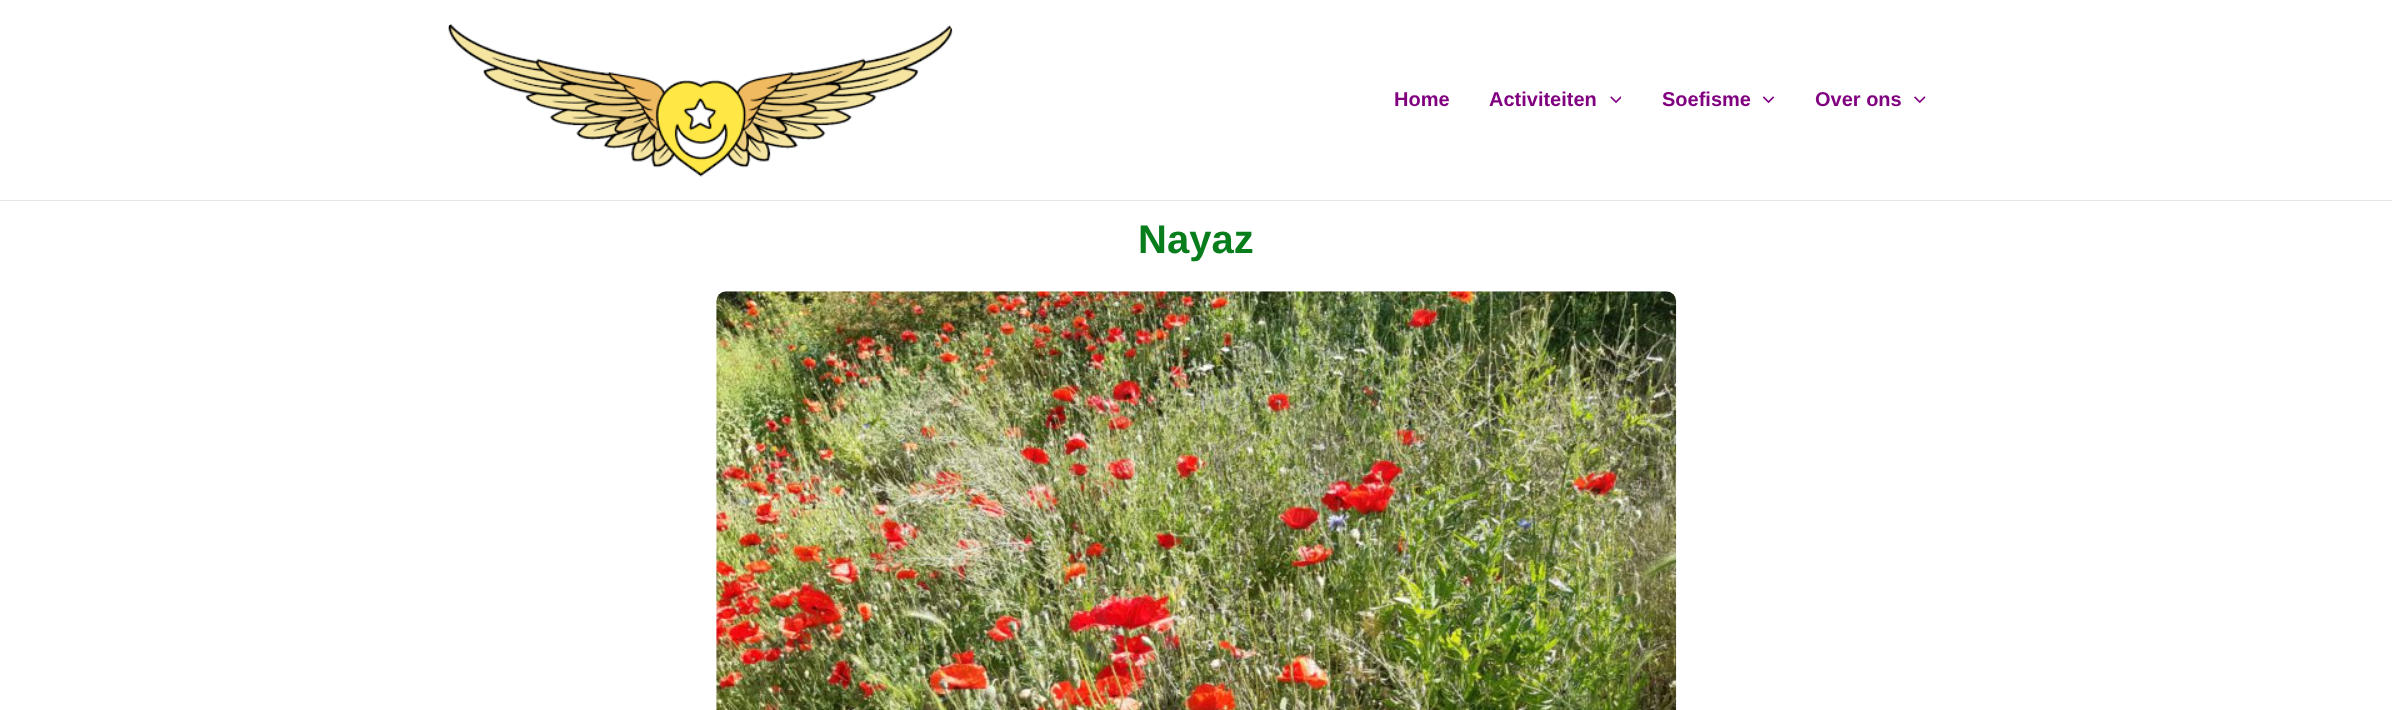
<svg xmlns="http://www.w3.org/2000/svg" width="2392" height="710">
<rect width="100%" height="100%" fill="#fff"/>
<rect y="200" width="2392" height="1" fill="#e5e5e5"/>
<image x="447" y="24" width="506" height="153" href="media/1.png"/>
<text x="1394" y="106" style="font-family:Liberation Sans;font-size:20px;font-weight:bold;fill:#800080">Home</text>
<text x="1489" y="106" style="font-family:Liberation Sans;font-size:20px;font-weight:bold;fill:#800080">Activiteiten</text>
<image x="1610" y="96" width="11" height="8" href="media/2.png"/>
<text x="1662" y="106" style="font-family:Liberation Sans;font-size:20px;font-weight:bold;fill:#800080">Soefisme</text>
<image x="1763" y="96" width="12" height="8" href="media/3.png"/>
<text x="1815" y="106" style="font-family:Liberation Sans;font-size:20px;font-weight:bold;fill:#800080">Over ons</text>
<image x="1914" y="96" width="12" height="8" href="media/4.png"/>
<text x="1138" y="253" style="font-family:Liberation Sans;font-size:40px;font-weight:bold;fill:#087d1c">Nayaz</text>
<image x="716" y="291" width="961" height="419" href="media/5.png"/>
</svg>
